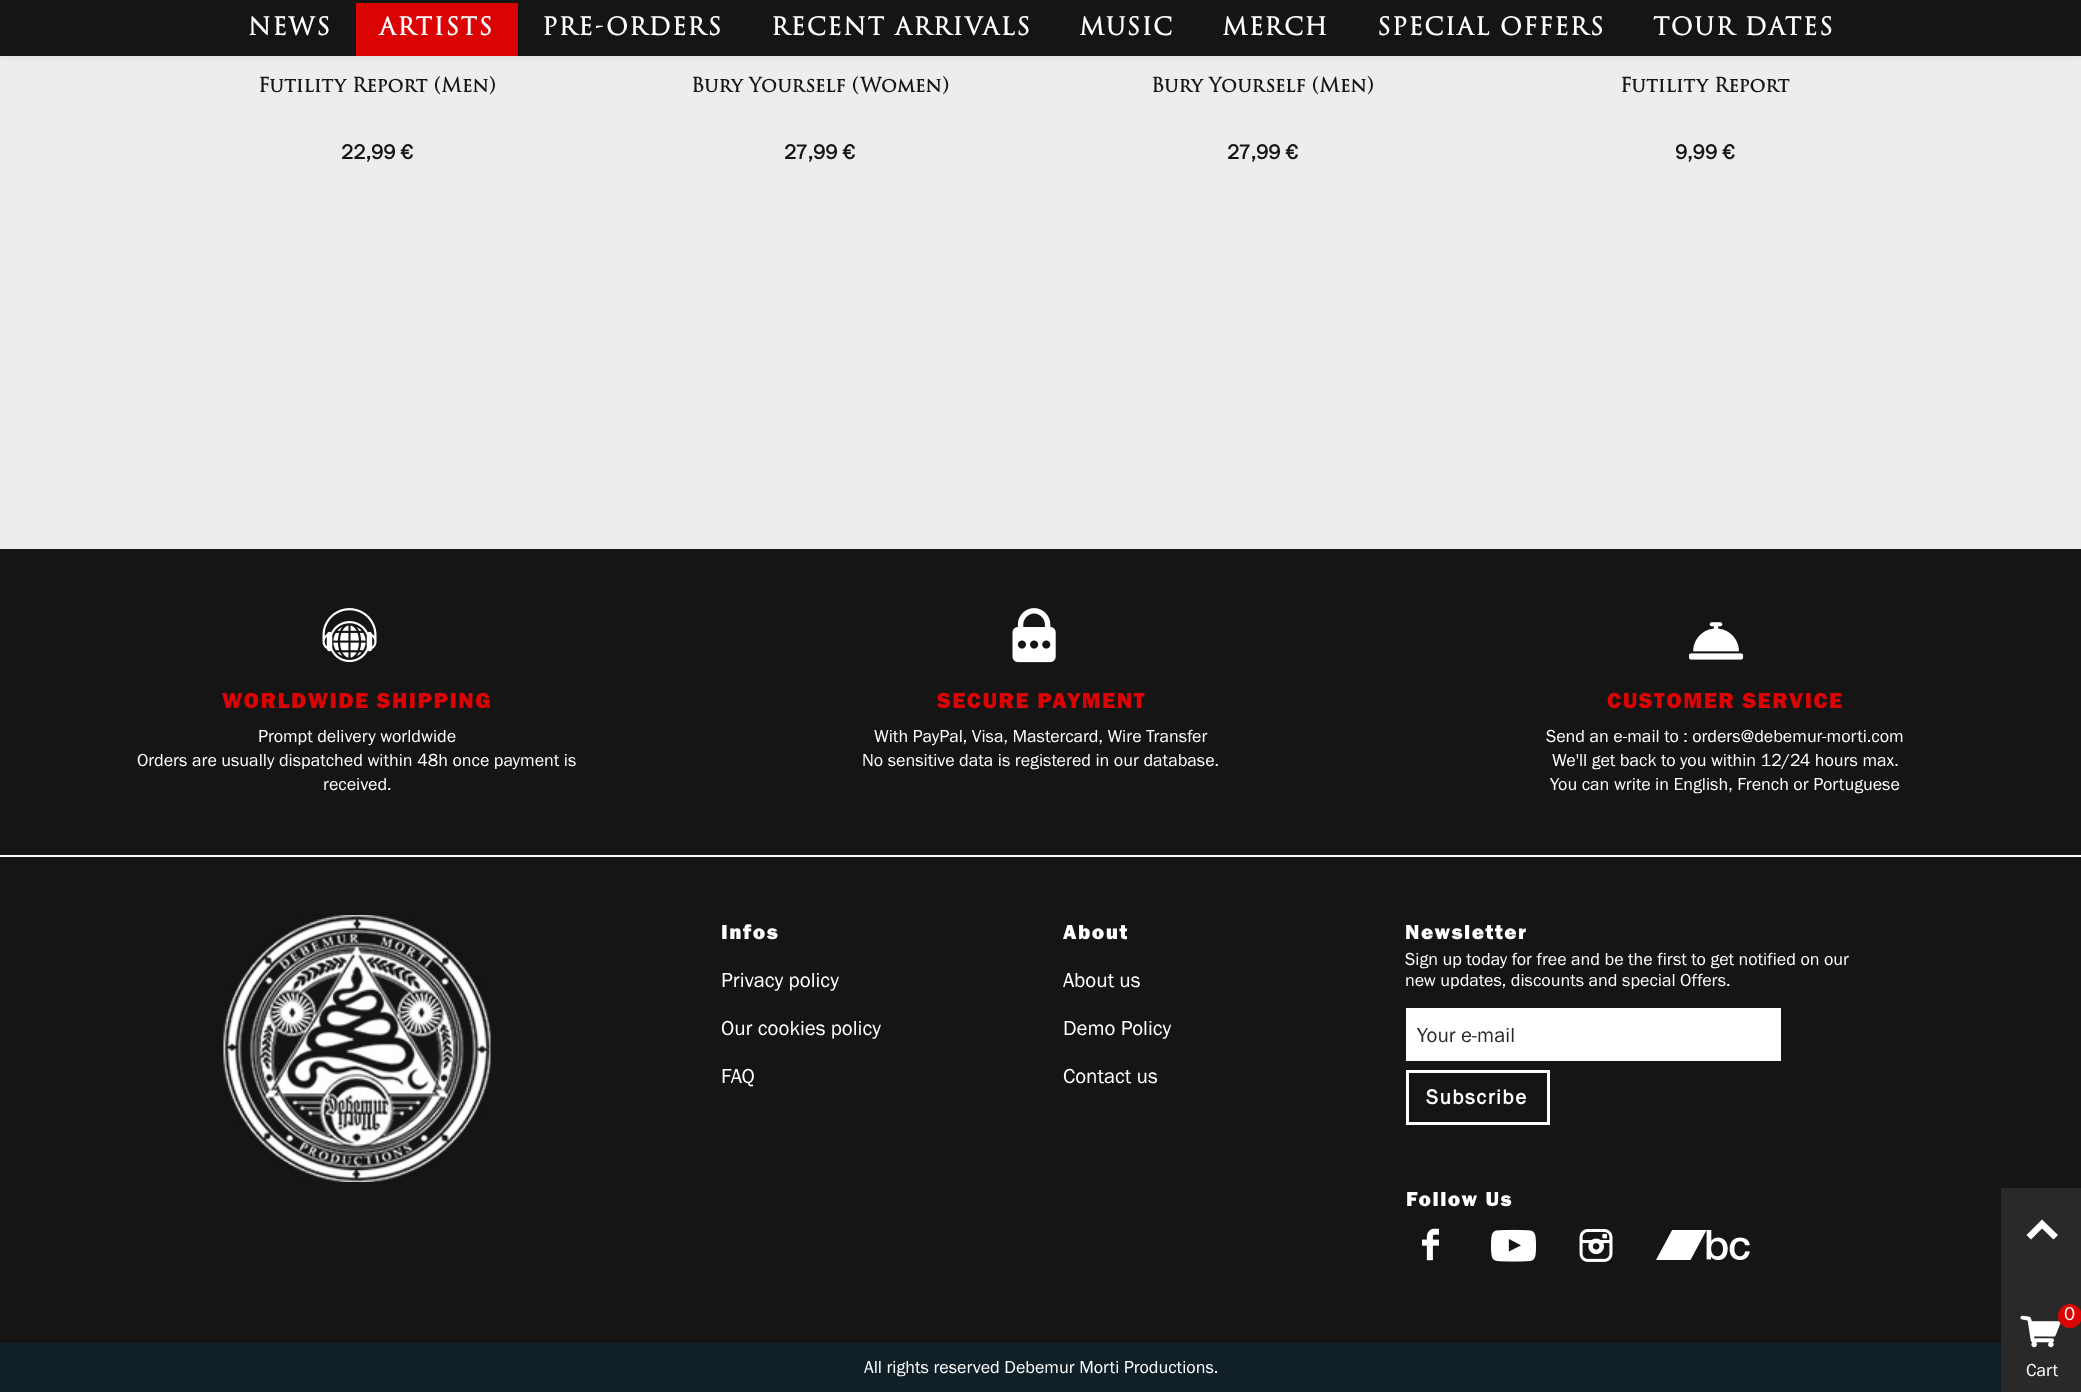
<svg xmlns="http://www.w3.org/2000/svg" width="2081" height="1392">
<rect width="100%" height="100%" fill="#ededed"/>
<rect width="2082" height="56" fill="#0000001a" filter="blur(3px)"/>
<rect width="2081" height="56" fill="#151515"/>
<text x="248" y="35" style="font-family:'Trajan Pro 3';font-size:24px;font-weight:bold;letter-spacing:1.5px;fill:#fff">NEWS</text>
<rect x="356" y="3" width="162" height="53" fill="#db0404"/>
<text x="379" y="35" style="font-family:'Trajan Pro 3';font-size:24px;font-weight:bold;letter-spacing:1.5px;fill:#fff">ARTISTS</text>
<text x="542" y="35" style="font-family:'Trajan Pro 3';font-size:24px;font-weight:bold;letter-spacing:1.5px;fill:#fff">PRE-ORDERS</text>
<text x="771" y="35" style="font-family:'Trajan Pro 3';font-size:24px;font-weight:bold;letter-spacing:1.5px;fill:#fff">RECENT ARRIVALS</text>
<text x="1079" y="35" style="font-family:'Trajan Pro 3';font-size:24px;font-weight:bold;letter-spacing:1.5px;fill:#fff">MUSIC</text>
<text x="1222" y="35" style="font-family:'Trajan Pro 3';font-size:24px;font-weight:bold;letter-spacing:1.5px;fill:#fff">MERCH</text>
<text x="1377" y="35" style="font-family:'Trajan Pro 3';font-size:24px;font-weight:bold;letter-spacing:1.5px;fill:#fff">SPECIAL OFFERS</text>
<text x="1653" y="35" style="font-family:'Trajan Pro 3';font-size:24px;font-weight:bold;letter-spacing:1.5px;fill:#fff">TOUR DATES</text>
<text x="258" y="92" style="font-family:'Trajan Pro 3';font-size:19.5px;font-weight:bold;fill:#151515">Futility Report (Men)</text>
<text x="341" y="159" style="font-family:Franklin Gothic;font-size:21px;font-weight:bold;fill:#151515">22,99 €</text>
<text x="691" y="92" style="font-family:'Trajan Pro 3';font-size:19.5px;font-weight:bold;fill:#151515">Bury Yourself (Women)</text>
<text x="784" y="159" style="font-family:Franklin Gothic;font-size:21px;font-weight:bold;fill:#151515">27,99 €</text>
<text x="1151" y="92" style="font-family:'Trajan Pro 3';font-size:19.5px;font-weight:bold;fill:#151515">Bury Yourself (Men)</text>
<text x="1227" y="159" style="font-family:Franklin Gothic;font-size:21px;font-weight:bold;fill:#151515">27,99 €</text>
<text x="1620" y="92" style="font-family:'Trajan Pro 3';font-size:19.5px;font-weight:bold;fill:#151515">Futility Report</text>
<text x="1675" y="159" style="font-family:Franklin Gothic;font-size:21px;font-weight:bold;fill:#151515">9,99 €</text>
<rect y="549" width="2081" height="306" fill="#151515"/>
<image x="322" y="608" width="55" height="55" href="media/1.png"/>
<text x="222" y="708" style="font-family:Franklin Gothic;font-size:22.5px;font-weight:900;letter-spacing:1.5px;fill:#db0404">WORLDWIDE SHIPPING</text>
<text x="258" y="742" style="font-family:Franklin Gothic;font-size:18px;fill:#fff">Prompt delivery worldwide</text>
<text x="137" y="766" style="font-family:Franklin Gothic;font-size:18px;fill:#fff">Orders are usually dispatched within 48h once payment is</text>
<text x="323" y="790" style="font-family:Franklin Gothic;font-size:18px;fill:#fff">received.</text>
<image x="1012" y="608" width="44" height="55" href="media/2.png"/>
<text x="937" y="708" style="font-family:Franklin Gothic;font-size:22.5px;font-weight:900;letter-spacing:1.5px;fill:#db0404">SECURE PAYMENT</text>
<text x="874" y="742" style="font-family:Franklin Gothic;font-size:18px;fill:#fff">With PayPal, Visa, Mastercard, Wire Transfer</text>
<text x="862" y="766" style="font-family:Franklin Gothic;font-size:18px;fill:#fff">No sensitive data is registered in our database.</text>
<image x="1689" y="622" width="55" height="38" href="media/3.png"/>
<text x="1607" y="708" style="font-family:Franklin Gothic;font-size:22.5px;font-weight:900;letter-spacing:1.5px;fill:#db0404">CUSTOMER SERVICE</text>
<text x="1546" y="742" style="font-family:Franklin Gothic;font-size:18px;fill:#fff">Send an e-mail to : orders@debemur-morti.com</text>
<text x="1552" y="766" style="font-family:Franklin Gothic;font-size:18px;fill:#fff">We'll get back to you within 12/24 hours max.</text>
<text x="1550" y="790" style="font-family:Franklin Gothic;font-size:18px;fill:#fff">You can write in English, French or Portuguese</text>
<rect y="855" width="2081" height="2" fill="#fff"/>
<rect y="857" width="2081" height="486" fill="#151515"/>
<image x="223" y="915" width="268" height="267" href="media/4.png"/>
<text x="721" y="939" style="font-family:Franklin Gothic;font-size:21px;font-weight:900;letter-spacing:1.5px;fill:#fff">Infos</text>
<text x="721" y="987" style="font-family:Franklin Gothic;font-size:21px;fill:#fff">Privacy policy</text>
<text x="721" y="1035" style="font-family:Franklin Gothic;font-size:21px;fill:#fff">Our cookies policy</text>
<text x="721" y="1083" style="font-family:Franklin Gothic;font-size:21px;fill:#fff">FAQ</text>
<text x="1063" y="939" style="font-family:Franklin Gothic;font-size:21px;font-weight:900;letter-spacing:1.5px;fill:#fff">About</text>
<text x="1063" y="987" style="font-family:Franklin Gothic;font-size:21px;fill:#fff">About us</text>
<text x="1063" y="1035" style="font-family:Franklin Gothic;font-size:21px;fill:#fff">Demo Policy</text>
<text x="1063" y="1083" style="font-family:Franklin Gothic;font-size:21px;fill:#fff">Contact us</text>
<text x="1405" y="939" style="font-family:Franklin Gothic;font-size:21px;font-weight:900;letter-spacing:1.5px;fill:#fff">Newsletter</text>
<text x="1405" y="965" style="font-family:Franklin Gothic;font-size:18px;fill:#fff">Sign up today for free and be the first to get notified on our</text>
<text x="1405" y="986" style="font-family:Franklin Gothic;font-size:18px;fill:#fff">new updates, discounts and special Offers.</text>
<rect x="1406" y="1008" width="375" height="53" fill="#fff"/>
<text x="1417" y="1042" style="font-family:Franklin Gothic;font-size:21px;fill:#292929">Your e-mail</text>
<rect x="1407.5" y="1071.5" width="141" height="52" fill="none" stroke="#fff" stroke-width="3"/>
<text x="1426" y="1104" style="font-family:Franklin Gothic;font-size:21px;font-weight:bold;letter-spacing:1.5px;fill:#fff">Subscribe</text>
<text x="1406" y="1206" style="font-family:Franklin Gothic;font-size:21px;font-weight:900;letter-spacing:1.5px;fill:#fff">Follow Us</text>
<image x="1422" y="1228" width="17" height="33" href="media/5.png"/>
<image x="1491" y="1229" width="45" height="33" href="media/6.png"/>
<image x="1579" y="1229" width="34" height="33" href="media/7.png"/>
<image x="1656" y="1230" width="94" height="30" href="media/8.png"/>
<rect y="1343" width="2001" height="49" fill="#111f28"/>
<text x="864" y="1373" style="font-family:Franklin Gothic;font-size:18px;fill:#fff">All rights reserved Debemur Morti Productions.</text>
<rect x="2001" y="1188" width="80" height="204" fill="#292929"/>
<path d="M2026.5 1235l15.5-15.5l16 15.5l-4.5 4.5l-11.5-11l-11 11z" fill="#fff"/>
<image x="2020" y="1315" width="41" height="33" href="media/9.png"/>
<circle cx="2070" cy="1316" r="12" fill="#db0404"/>
<text x="2064" y="1320" style="font-family:Franklin Gothic;font-size:19px;fill:#fff">0</text>
<text x="2026" y="1376" style="font-family:Franklin Gothic;font-size:18px;fill:#fff">Cart</text>
</svg>
